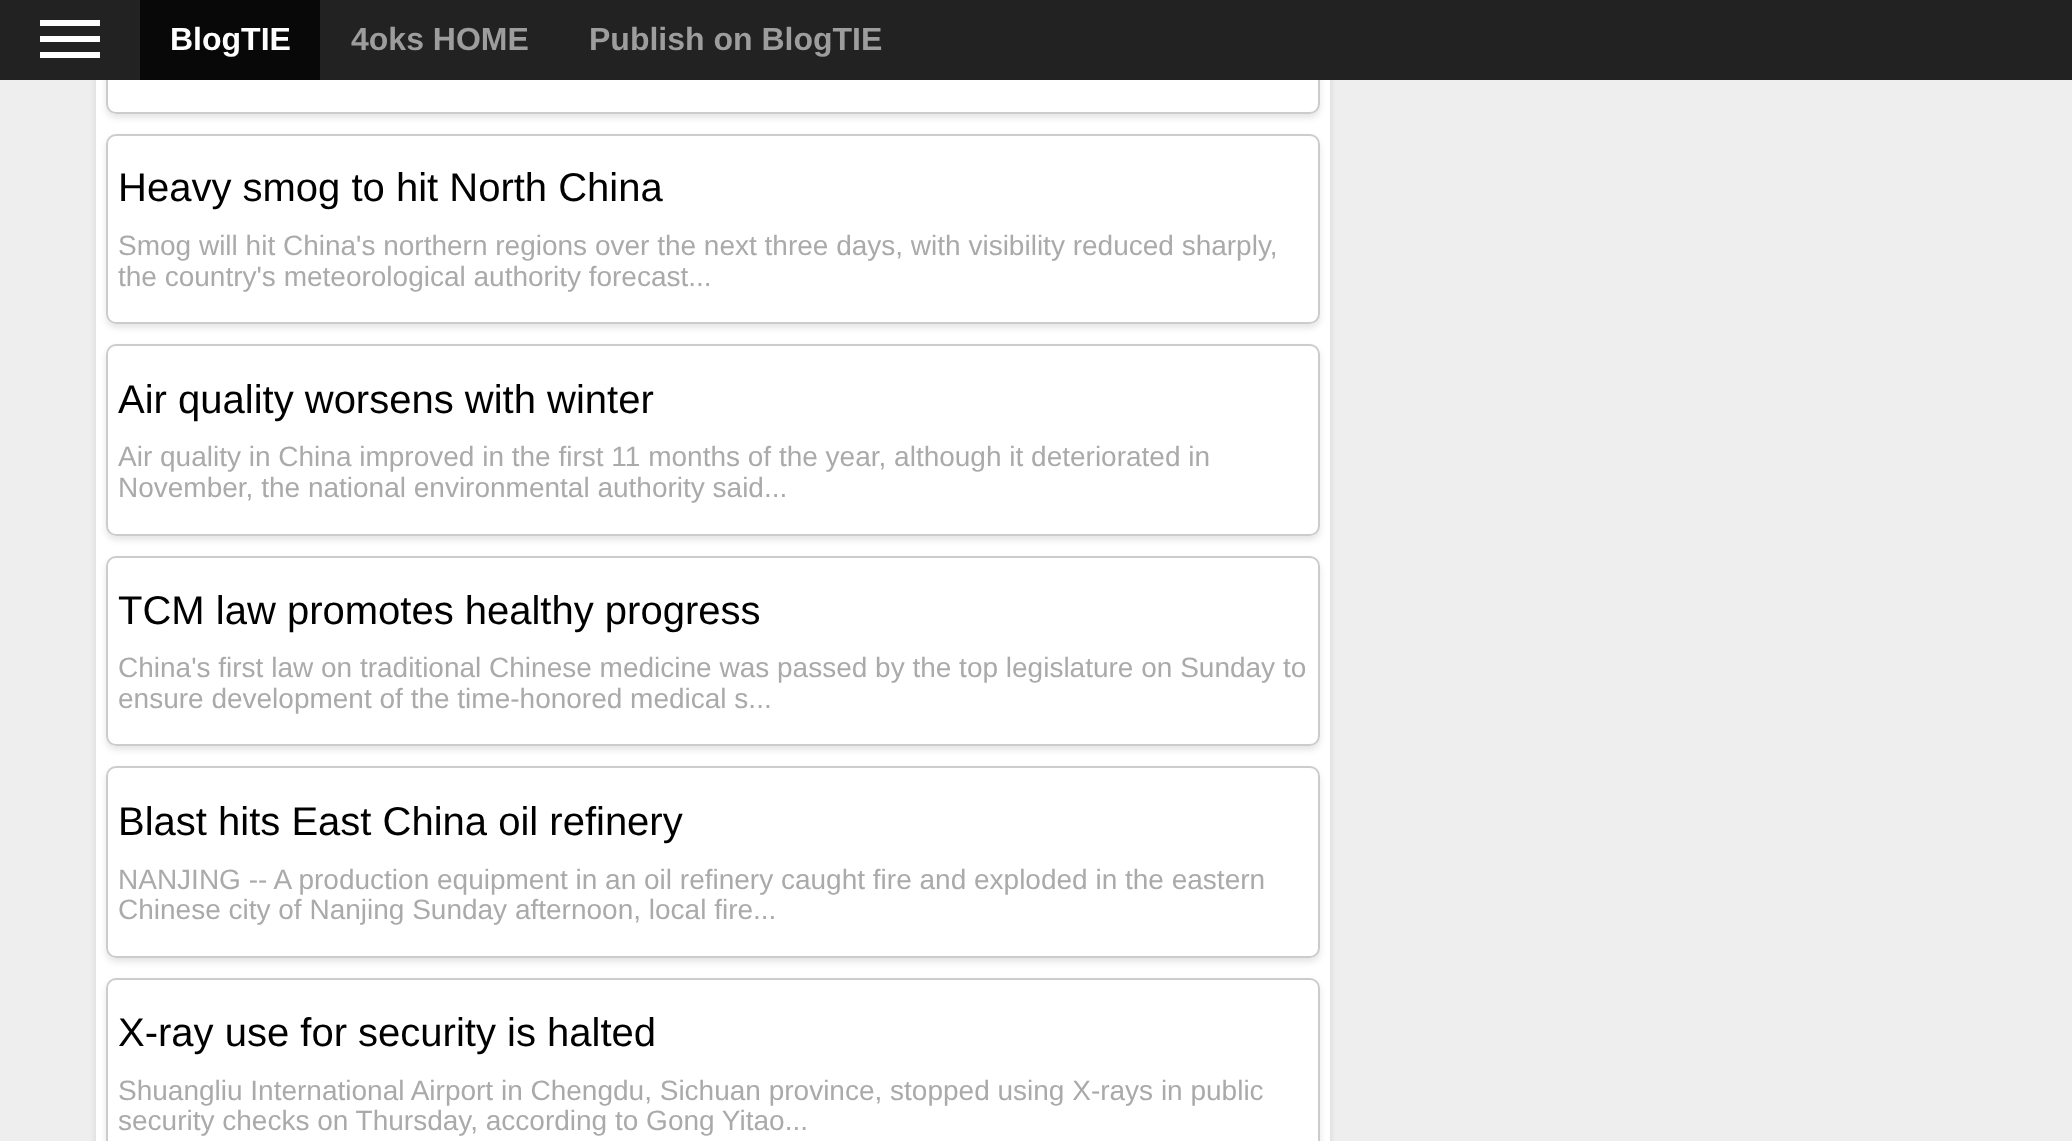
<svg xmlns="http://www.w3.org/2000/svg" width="2072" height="1141">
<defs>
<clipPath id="clip1"><path d="M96 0h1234v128h-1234zm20-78h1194c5.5 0 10 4.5 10 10v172c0 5.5-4.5 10-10 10h-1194c-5.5 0-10-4.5-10-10v-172c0-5.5 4.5-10 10-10z" clip-rule="evenodd"/></clipPath>
<clipPath id="clip2"><path d="M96 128h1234v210h-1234zm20 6h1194c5.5 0 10 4.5 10 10v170c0 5.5-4.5 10-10 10h-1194c-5.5 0-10-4.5-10-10v-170c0-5.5 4.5-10 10-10z" clip-rule="evenodd"/></clipPath>
<clipPath id="clip3"><path d="M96 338h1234v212h-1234zm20 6h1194c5.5 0 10 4.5 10 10v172c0 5.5-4.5 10-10 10h-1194c-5.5 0-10-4.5-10-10v-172c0-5.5 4.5-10 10-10z" clip-rule="evenodd"/></clipPath>
<clipPath id="clip4"><path d="M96 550h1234v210h-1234zm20 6h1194c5.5 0 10 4.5 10 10v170c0 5.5-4.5 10-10 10h-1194c-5.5 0-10-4.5-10-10v-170c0-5.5 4.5-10 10-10z" clip-rule="evenodd"/></clipPath>
<clipPath id="clip5"><path d="M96 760h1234v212h-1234zm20 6h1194c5.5 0 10 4.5 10 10v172c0 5.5-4.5 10-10 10h-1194c-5.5 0-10-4.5-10-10v-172c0-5.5 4.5-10 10-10z" clip-rule="evenodd"/></clipPath>
<clipPath id="clip6"><path d="M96 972h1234v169h-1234zm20 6h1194c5.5 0 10 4.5 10 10v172c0 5.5-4.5 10-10 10h-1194c-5.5 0-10-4.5-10-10v-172c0-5.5 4.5-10 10-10z" clip-rule="evenodd"/></clipPath>
</defs>
<rect width="100%" height="100%" fill="#eee"/>
<rect x="96" y="-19" width="1234" height="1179" rx="10" fill="#0000001a" filter="blur(3px)"/>
<rect x="96" y="80" width="1234" height="1061" fill="#fff"/>
<g clip-path="url(#clip1)">
<rect x="106" y="-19" width="1214" height="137" rx="10" fill="#0000001a" filter="blur(3px)"/>
</g>
<rect x="107" y="-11" width="1212" height="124" rx="9" fill="none" stroke="#ccc" stroke-width="2"/>
<rect width="2072" height="80" fill="#222"/>
<rect x="40" y="20" width="60" height="6" fill="#fff"/>
<rect x="40" y="36" width="60" height="6" fill="#fff"/>
<rect x="40" y="52" width="60" height="6" fill="#fff"/>
<rect x="140" width="180" height="80" fill="#080808"/>
<text x="170" y="50" style="font-family:Liberation Sans;font-size:32px;font-weight:bold;fill:#fff">BlogTIE</text>
<text x="351" y="50" style="font-family:Liberation Sans;font-size:32px;font-weight:bold;fill:#9d9d9d">4oks HOME</text>
<text x="589" y="50" style="font-family:Liberation Sans;font-size:32px;font-weight:bold;fill:#9d9d9d">Publish on BlogTIE</text>
<g clip-path="url(#clip2)">
<rect x="106" y="138" width="1214" height="190" rx="10" fill="#0000001a" filter="blur(3px)"/>
</g>
<rect x="107" y="135" width="1212" height="188" rx="9" fill="none" stroke="#ccc" stroke-width="2"/>
<text x="118" y="201" style="font-family:Liberation Sans;font-size:40px;fill:#000">Heavy smog to hit North China</text>
<text x="118" y="255" style="font-family:Liberation Sans;font-size:28px;fill:#aaa">Smog will hit China's northern regions over the next three days, with visibility reduced sharply,</text>
<text x="118" y="286" style="font-family:Liberation Sans;font-size:28px;fill:#aaa">the country's meteorological authority forecast...</text>
<g clip-path="url(#clip3)">
<rect x="106" y="348" width="1214" height="192" rx="10" fill="#0000001a" filter="blur(3px)"/>
</g>
<rect x="107" y="345" width="1212" height="190" rx="9" fill="none" stroke="#ccc" stroke-width="2"/>
<text x="118" y="413" style="font-family:Liberation Sans;font-size:40px;fill:#000">Air quality worsens with winter</text>
<text x="118" y="466" style="font-family:Liberation Sans;font-size:28px;fill:#aaa">Air quality in China improved in the first 11 months of the year, although it deteriorated in</text>
<text x="118" y="497" style="font-family:Liberation Sans;font-size:28px;fill:#aaa">November, the national environmental authority said...</text>
<g clip-path="url(#clip4)">
<rect x="106" y="560" width="1214" height="190" rx="10" fill="#0000001a" filter="blur(3px)"/>
</g>
<rect x="107" y="557" width="1212" height="188" rx="9" fill="none" stroke="#ccc" stroke-width="2"/>
<text x="118" y="624" style="font-family:Liberation Sans;font-size:40px;fill:#000">TCM law promotes healthy progress</text>
<text x="118" y="677" style="font-family:Liberation Sans;font-size:28px;fill:#aaa">China's first law on traditional Chinese medicine was passed by the top legislature on Sunday to</text>
<text x="118" y="708" style="font-family:Liberation Sans;font-size:28px;fill:#aaa">ensure development of the time-honored medical s...</text>
<g clip-path="url(#clip5)">
<rect x="106" y="770" width="1214" height="192" rx="10" fill="#0000001a" filter="blur(3px)"/>
</g>
<rect x="107" y="767" width="1212" height="190" rx="9" fill="none" stroke="#ccc" stroke-width="2"/>
<text x="118" y="835" style="font-family:Liberation Sans;font-size:40px;fill:#000">Blast hits East China oil refinery</text>
<text x="118" y="889" style="font-family:Liberation Sans;font-size:28px;fill:#aaa">NANJING -- A production equipment in an oil refinery caught fire and exploded in the eastern</text>
<text x="118" y="919" style="font-family:Liberation Sans;font-size:28px;fill:#aaa">Chinese city of Nanjing Sunday afternoon, local fire...</text>
<g clip-path="url(#clip6)">
<rect x="106" y="982" width="1214" height="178" rx="10" fill="#0000001a" filter="blur(3px)"/>
</g>
<rect x="107" y="979" width="1212" height="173" rx="9" fill="none" stroke="#ccc" stroke-width="2"/>
<text x="118" y="1046" style="font-family:Liberation Sans;font-size:40px;fill:#000">X-ray use for security is halted</text>
<text x="118" y="1100" style="font-family:Liberation Sans;font-size:28px;fill:#aaa">Shuangliu International Airport in Chengdu, Sichuan province, stopped using X-rays in public</text>
<text x="118" y="1130" style="font-family:Liberation Sans;font-size:28px;fill:#aaa">security checks on Thursday, according to Gong Yitao...</text>
</svg>
